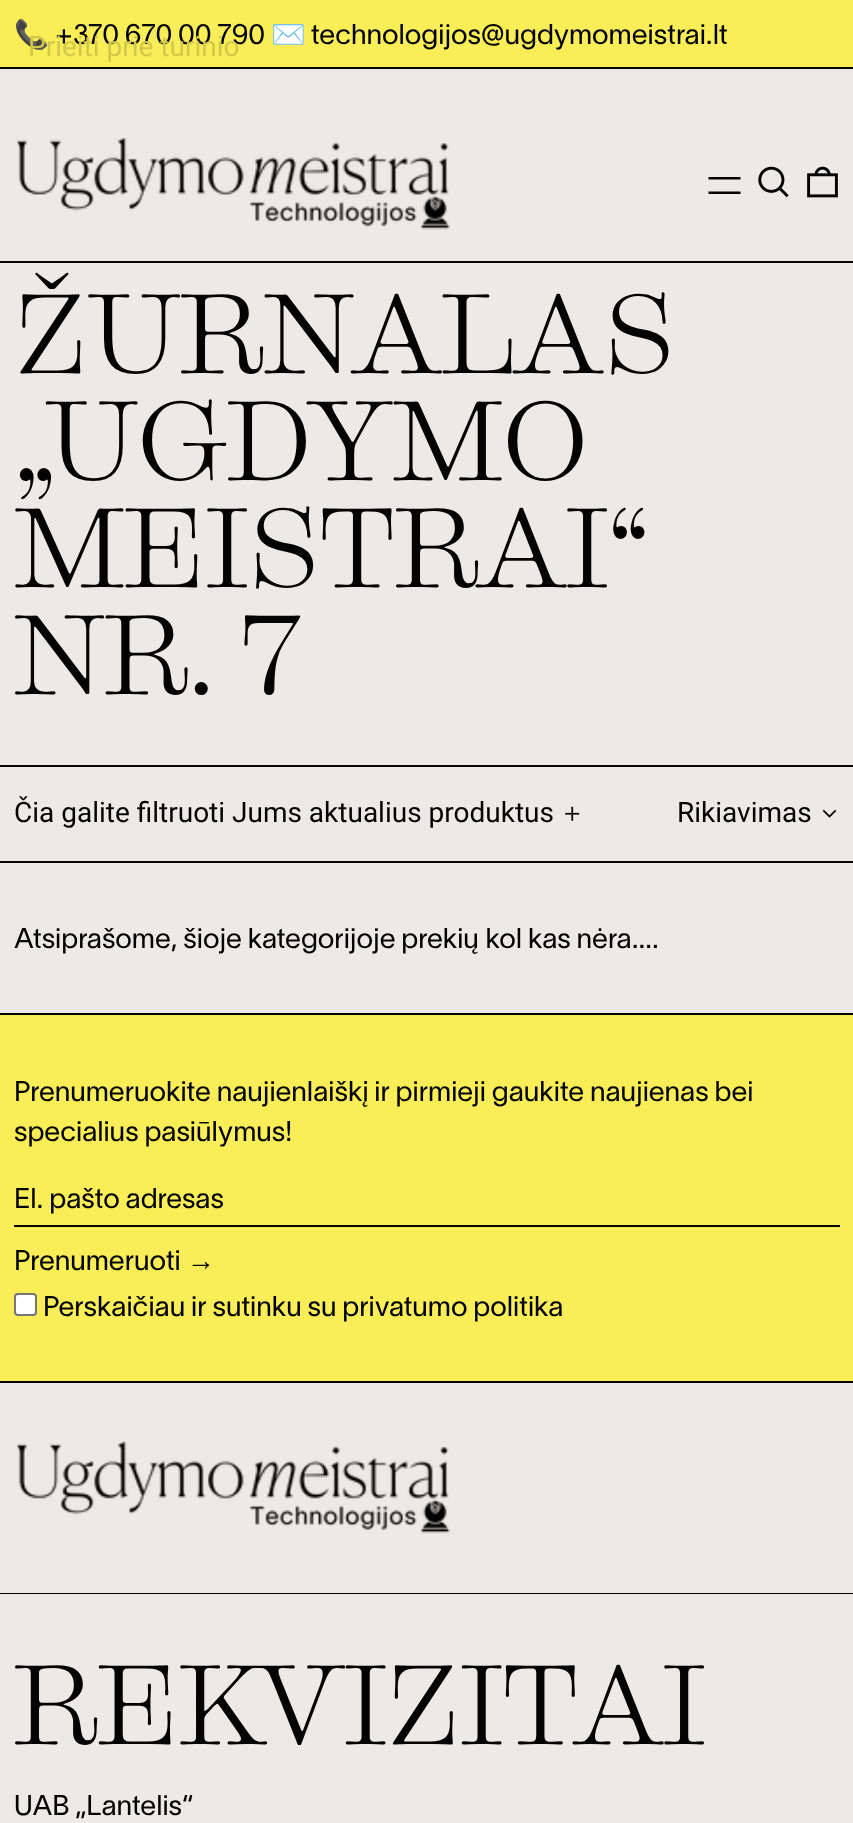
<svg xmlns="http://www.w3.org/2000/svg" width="853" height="1823">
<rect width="100%" height="100%" fill="#ede9e6"/>
<rect width="853" height="67" fill="#f9ed58"/>
<rect y="67" width="853" height="2" fill="#030303"/>
<text x="14" y="44" style="font-family:Noto Color Emoji;font-size:28px;fill:#030303">📞</text>
<text x="55" y="44" style="font-family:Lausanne;font-size:28px;fill:#030303">+370 670 00 790</text>
<text x="271" y="44" style="font-family:Noto Color Emoji;font-size:28px;fill:#030303">✉️</text>
<text x="311" y="44" style="font-family:Lausanne;font-size:28px;fill:#030303">technologijos@ugdymomeistrai.lt</text>
<text x="28" y="56" style="font-family:Roboto;font-size:28px;fill:#d2c84a">Prieiti prie turinio</text>
<rect y="261" width="853" height="2" fill="#030303"/>
<image x="17" y="137" width="434" height="93" href="media/1.png"/>
<path d="M740.5 191.5v2.5h-32v-2.5zm0-14.5v2.5h-32v-2.5z" fill="#030303" fill-rule="evenodd"/>
<image x="758" y="166" width="31" height="32" href="media/2.png"/>
<image x="807" y="166" width="31" height="32" href="media/3.png"/>
<rect y="765" width="853" height="2" fill="#030303"/>
<text x="14" y="373" style="font-family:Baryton;font-size:106.75px;fill:#030303">ŽURNALAS</text>
<text x="14" y="480" style="font-family:Baryton;font-size:106.75px;fill:#030303">„UGDYMO</text>
<text x="14" y="587" style="font-family:Baryton;font-size:106.75px;fill:#030303">MEISTRAI“</text>
<text x="14" y="694" style="font-family:Baryton;font-size:106.75px;fill:#030303">NR. 7</text>
<rect y="861" width="853" height="2" fill="#030303"/>
<text x="14" y="822" style="font-family:Roboto;font-size:28px;fill:#030303">Čia galite filtruoti Jums aktualius produktus</text>
<image x="565" y="806" width="15" height="15" href="media/4.png"/>
<text x="677" y="822" style="font-family:Roboto;font-size:28px;fill:#030303">Rikiavimas</text>
<image x="822" y="809" width="15" height="9" href="media/5.png"/>
<text x="14" y="948" style="font-family:Lausanne;font-size:28px;fill:#030303">Atsiprašome, šioje kategorijoje prekių kol kas nėra....</text>
<rect y="1015" width="853" height="366" fill="#f9ed58"/>
<rect y="1013" width="853" height="2" fill="#030303"/>
<text x="14" y="1101" style="font-family:Lausanne;font-size:28px;fill:#030303">Prenumeruokite naujienlaiškį ir pirmieji gaukite naujienas bei</text>
<text x="14" y="1141" style="font-family:Lausanne;font-size:28px;fill:#030303">specialius pasiūlymus!</text>
<rect x="14" y="1225" width="826" height="2" fill="#030303"/>
<text x="14" y="1208" style="font-family:Lausanne;font-size:28px;fill:#030303">El. pašto adresas</text>
<text x="14" y="1270" style="font-family:Lausanne;font-size:28px;fill:#030303">Prenumeruoti</text>
<text x="187" y="1270" style="font-family:Liberation Serif;font-size:28px;fill:#030303">→</text>
<rect x="15" y="1294" width="21" height="21" rx="3" fill="#fff" stroke="#767676" stroke-width="2"/>
<text x="43" y="1316" style="font-family:Lausanne;font-size:28px;fill:#030303">Perskaičiau ir sutinku su privatumo politika</text>
<rect y="1381" width="853" height="2" fill="#030303"/>
<rect y="1593" width="853" height="1" fill="#030303"/>
<image x="17" y="1441" width="434" height="93" href="media/6.png"/>
<text x="14" y="1744" style="font-family:Baryton;font-size:106.75px;fill:#030303">REKVIZITAI</text>
<text x="14" y="1815" style="font-family:Lausanne;font-size:28px;fill:#030303">UAB „Lantelis“</text>
</svg>
